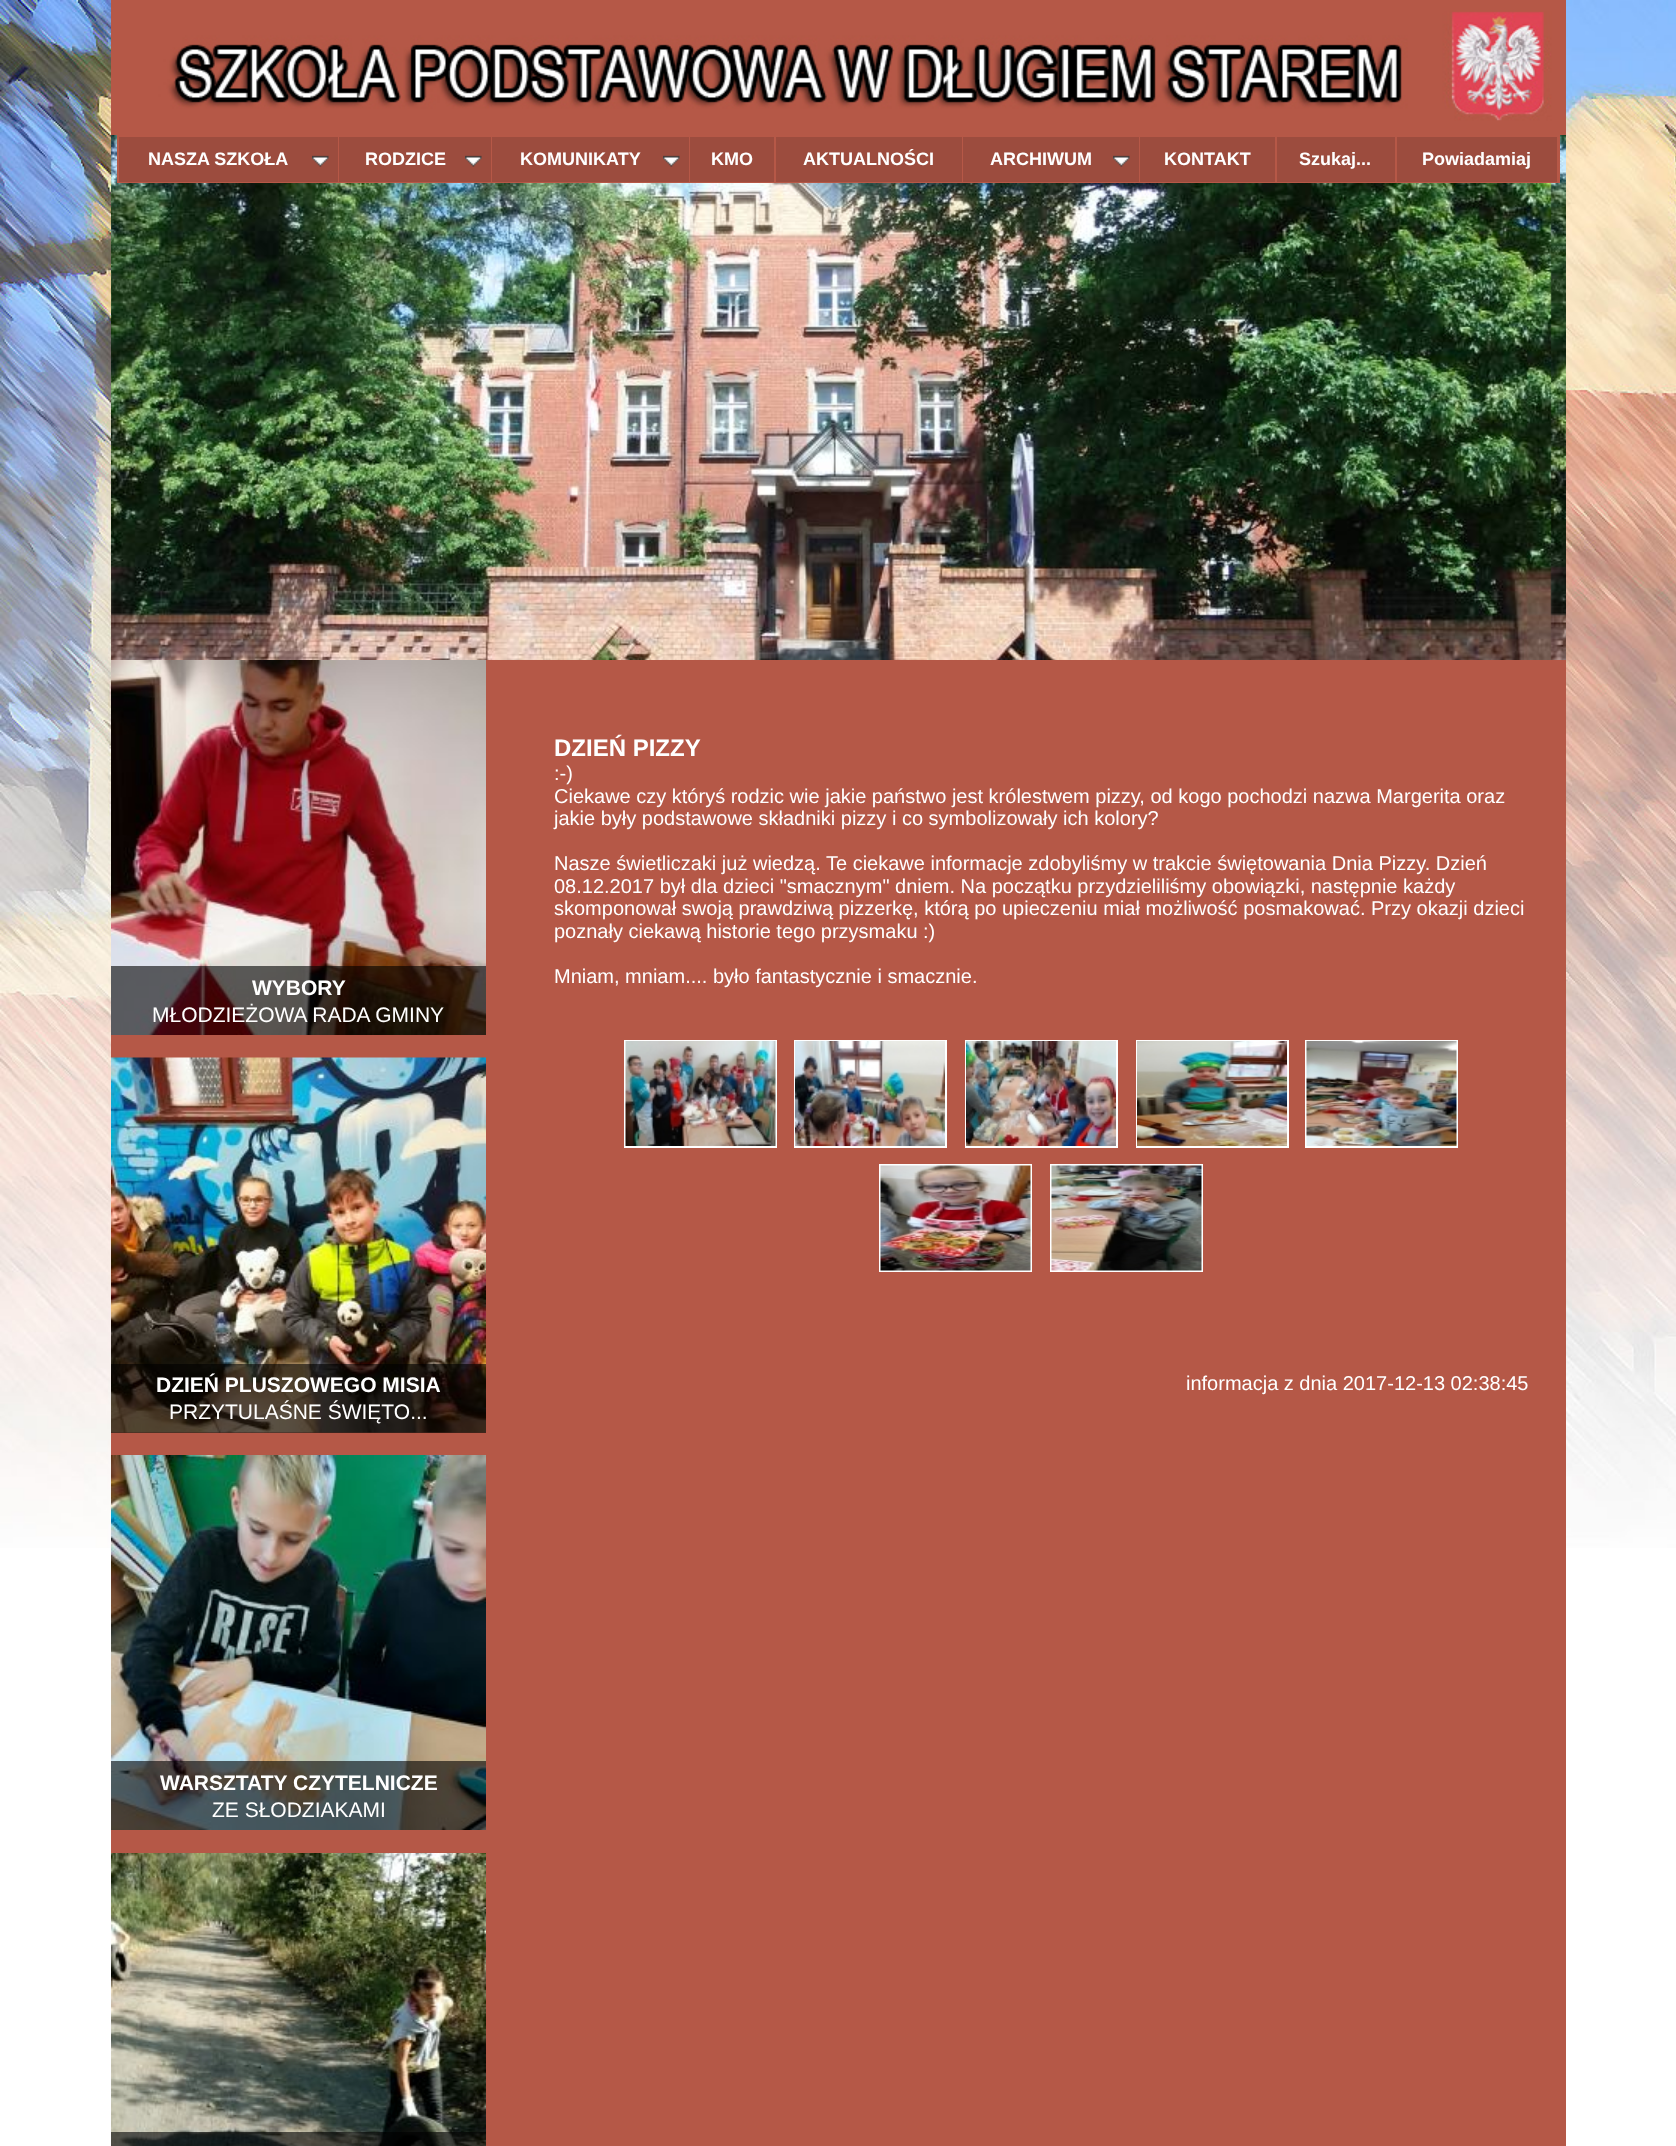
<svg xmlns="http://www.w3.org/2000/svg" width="1676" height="2146">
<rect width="100%" height="100%" fill="#fff"/>
<image x="0" y="0" width="1676" height="1548" href="media/1.png"/>
<image x="111" y="0" width="1455" height="135" href="media/2.png"/>
<rect x="111" y="660" width="1455" height="1486" fill="#b55847"/>
<image x="111" y="135" width="1455" height="525" href="media/3.png"/>
<rect x="118" y="136" width="1441" height="46" fill="none" stroke="#b65847" stroke-width="2"/>
<rect x="119" y="137" width="219" height="45" fill="#9c4c3e"/>
<rect x="338" y="137" width="1" height="45" fill="#b65847"/>
<text x="148" y="165" style="font-family:Liberation Sans;font-size:18px;font-weight:bold;fill:#fff">NASZA SZKOŁA</text>
<image x="312" y="155" width="17" height="12" href="media/4.png"/>
<rect x="339" y="137" width="152" height="45" fill="#9c4c3e"/>
<rect x="491" y="137" width="1" height="45" fill="#b65847"/>
<text x="365" y="165" style="font-family:Liberation Sans;font-size:18px;font-weight:bold;fill:#fff">RODZICE</text>
<image x="465" y="155" width="17" height="12" href="media/4.png"/>
<rect x="492" y="137" width="197" height="45" fill="#9c4c3e"/>
<rect x="689" y="137" width="1" height="45" fill="#b65847"/>
<text x="520" y="165" style="font-family:Liberation Sans;font-size:18px;font-weight:bold;fill:#fff">KOMUNIKATY</text>
<image x="663" y="155" width="17" height="12" href="media/5.png"/>
<rect x="690" y="137" width="84" height="45" fill="#9c4c3e"/>
<rect x="774" y="137" width="2" height="45" fill="#b65847"/>
<text x="711" y="165" style="font-family:Liberation Sans;font-size:18px;font-weight:bold;fill:#fff">KMO</text>
<rect x="776" y="137" width="186" height="45" fill="#9c4c3e"/>
<rect x="962" y="137" width="1" height="45" fill="#b65847"/>
<text x="803" y="165" style="font-family:Liberation Sans;font-size:18px;font-weight:bold;fill:#fff">AKTUALNOŚCI</text>
<rect x="963" y="137" width="176" height="45" fill="#9c4c3e"/>
<rect x="1139" y="137" width="1" height="45" fill="#b65847"/>
<text x="990" y="165" style="font-family:Liberation Sans;font-size:18px;font-weight:bold;fill:#fff">ARCHIWUM</text>
<image x="1113" y="155" width="17" height="12" href="media/4.png"/>
<rect x="1140" y="137" width="135" height="45" fill="#9c4c3e"/>
<rect x="1275" y="137" width="2" height="45" fill="#b65847"/>
<text x="1164" y="165" style="font-family:Liberation Sans;font-size:18px;font-weight:bold;fill:#fff">KONTAKT</text>
<rect x="1277" y="137" width="118" height="45" fill="#9c4c3e"/>
<rect x="1395" y="137" width="2" height="45" fill="#b65847"/>
<text x="1299" y="165" style="font-family:Liberation Sans;font-size:18px;font-weight:bold;fill:#fff">Szukaj...</text>
<rect x="1397" y="137" width="160" height="45" fill="#9c4c3e"/>
<rect x="1557" y="137" width="1" height="45" fill="#b65847"/>
<text x="1422" y="165" style="font-family:Liberation Sans;font-size:18px;font-weight:bold;fill:#fff">Powiadamiaj</text>
<image x="111" y="660" width="375" height="375" href="media/6.png"/>
<rect x="111" y="966" width="375" height="69" fill="#00000099"/>
<text x="252" y="995" style="font-family:Liberation Sans;font-size:21px;font-weight:bold;fill:#fff">WYBORY</text>
<text x="152" y="1022" style="font-family:Liberation Sans;font-size:21px;fill:#fff">MŁODZIEŻOWA RADA GMINY</text>
<image x="111" y="1057" width="375" height="376" href="media/7.png"/>
<rect x="111" y="1364" width="375" height="69" fill="#00000099"/>
<text x="156" y="1392" style="font-family:Liberation Sans;font-size:21px;font-weight:bold;fill:#fff">DZIEŃ PLUSZOWEGO MISIA</text>
<text x="169" y="1419" style="font-family:Liberation Sans;font-size:21px;fill:#fff">PRZYTULAŚNE ŚWIĘTO...</text>
<image x="111" y="1455" width="375" height="375" href="media/8.png"/>
<rect x="111" y="1761" width="375" height="69" fill="#00000099"/>
<text x="160" y="1790" style="font-family:Liberation Sans;font-size:21px;font-weight:bold;fill:#fff">WARSZTATY CZYTELNICZE</text>
<text x="212" y="1817" style="font-family:Liberation Sans;font-size:21px;fill:#fff">ZE SŁODZIAKAMI</text>
<image x="111" y="1853" width="375" height="293" href="media/9.png"/>
<rect x="111" y="2132" width="375" height="14" fill="#00000099"/>
<text x="554" y="756" style="font-family:Liberation Sans;font-size:24px;font-weight:bold;fill:#fff">DZIEŃ PIZZY</text>
<text x="554" y="780" style="font-family:Liberation Sans;font-size:20px;fill:#fff">:-)</text>
<text x="554" y="803" style="font-family:Liberation Sans;font-size:20px;fill:#fff">Ciekawe czy któryś rodzic wie jakie państwo jest królestwem pizzy, od kogo pochodzi nazwa Margerita oraz</text>
<text x="554" y="825" style="font-family:Liberation Sans;font-size:20px;fill:#fff">jakie były podstawowe składniki pizzy i co symbolizowały ich kolory?</text>
<text x="554" y="870" style="font-family:Liberation Sans;font-size:20px;fill:#fff">Nasze świetliczaki już wiedzą. Te ciekawe informacje zdobyliśmy w trakcie świętowania Dnia Pizzy. Dzień</text>
<text x="554" y="893" style="font-family:Liberation Sans;font-size:20px;fill:#fff">08.12.2017 był dla dzieci "smacznym" dniem. Na początku przydzieliliśmy obowiązki, następnie każdy</text>
<text x="554" y="915" style="font-family:Liberation Sans;font-size:20px;fill:#fff">skomponował swoją prawdziwą pizzerkę, którą po upieczeniu miał możliwość posmakować. Przy okazji dzieci</text>
<text x="554" y="938" style="font-family:Liberation Sans;font-size:20px;fill:#fff">poznały ciekawą historie tego przysmaku :)</text>
<text x="554" y="983" style="font-family:Liberation Sans;font-size:20px;fill:#fff">Mniam, mniam.... było fantastycznie i smacznie.</text>
<rect x="625" y="1041" width="151" height="106" fill="none" stroke="#fff" stroke-width="2"/>
<rect x="795" y="1041" width="151" height="106" fill="none" stroke="#fff" stroke-width="2"/>
<rect x="966" y="1041" width="151" height="106" fill="none" stroke="#fff" stroke-width="2"/>
<rect x="1137" y="1041" width="151" height="106" fill="none" stroke="#fff" stroke-width="2"/>
<rect x="1306" y="1041" width="151" height="106" fill="none" stroke="#fff" stroke-width="2"/>
<image x="625" y="1041" width="151" height="105" href="media/10.png"/>
<image x="795" y="1041" width="150" height="105" href="media/11.png"/>
<image x="966" y="1041" width="150" height="105" href="media/12.png"/>
<image x="1137" y="1041" width="150" height="105" href="media/13.png"/>
<image x="1306" y="1041" width="151" height="105" href="media/14.png"/>
<rect x="880" y="1165" width="151" height="106" fill="none" stroke="#fff" stroke-width="2"/>
<rect x="1051" y="1165" width="151" height="106" fill="none" stroke="#fff" stroke-width="2"/>
<image x="880" y="1165" width="151" height="106" href="media/15.png"/>
<image x="1051" y="1165" width="151" height="106" href="media/16.png"/>
<text x="1186" y="1390" style="font-family:Liberation Sans;font-size:20px;fill:#fff">informacja z dnia 2017-12-13 02:38:45</text>
</svg>
